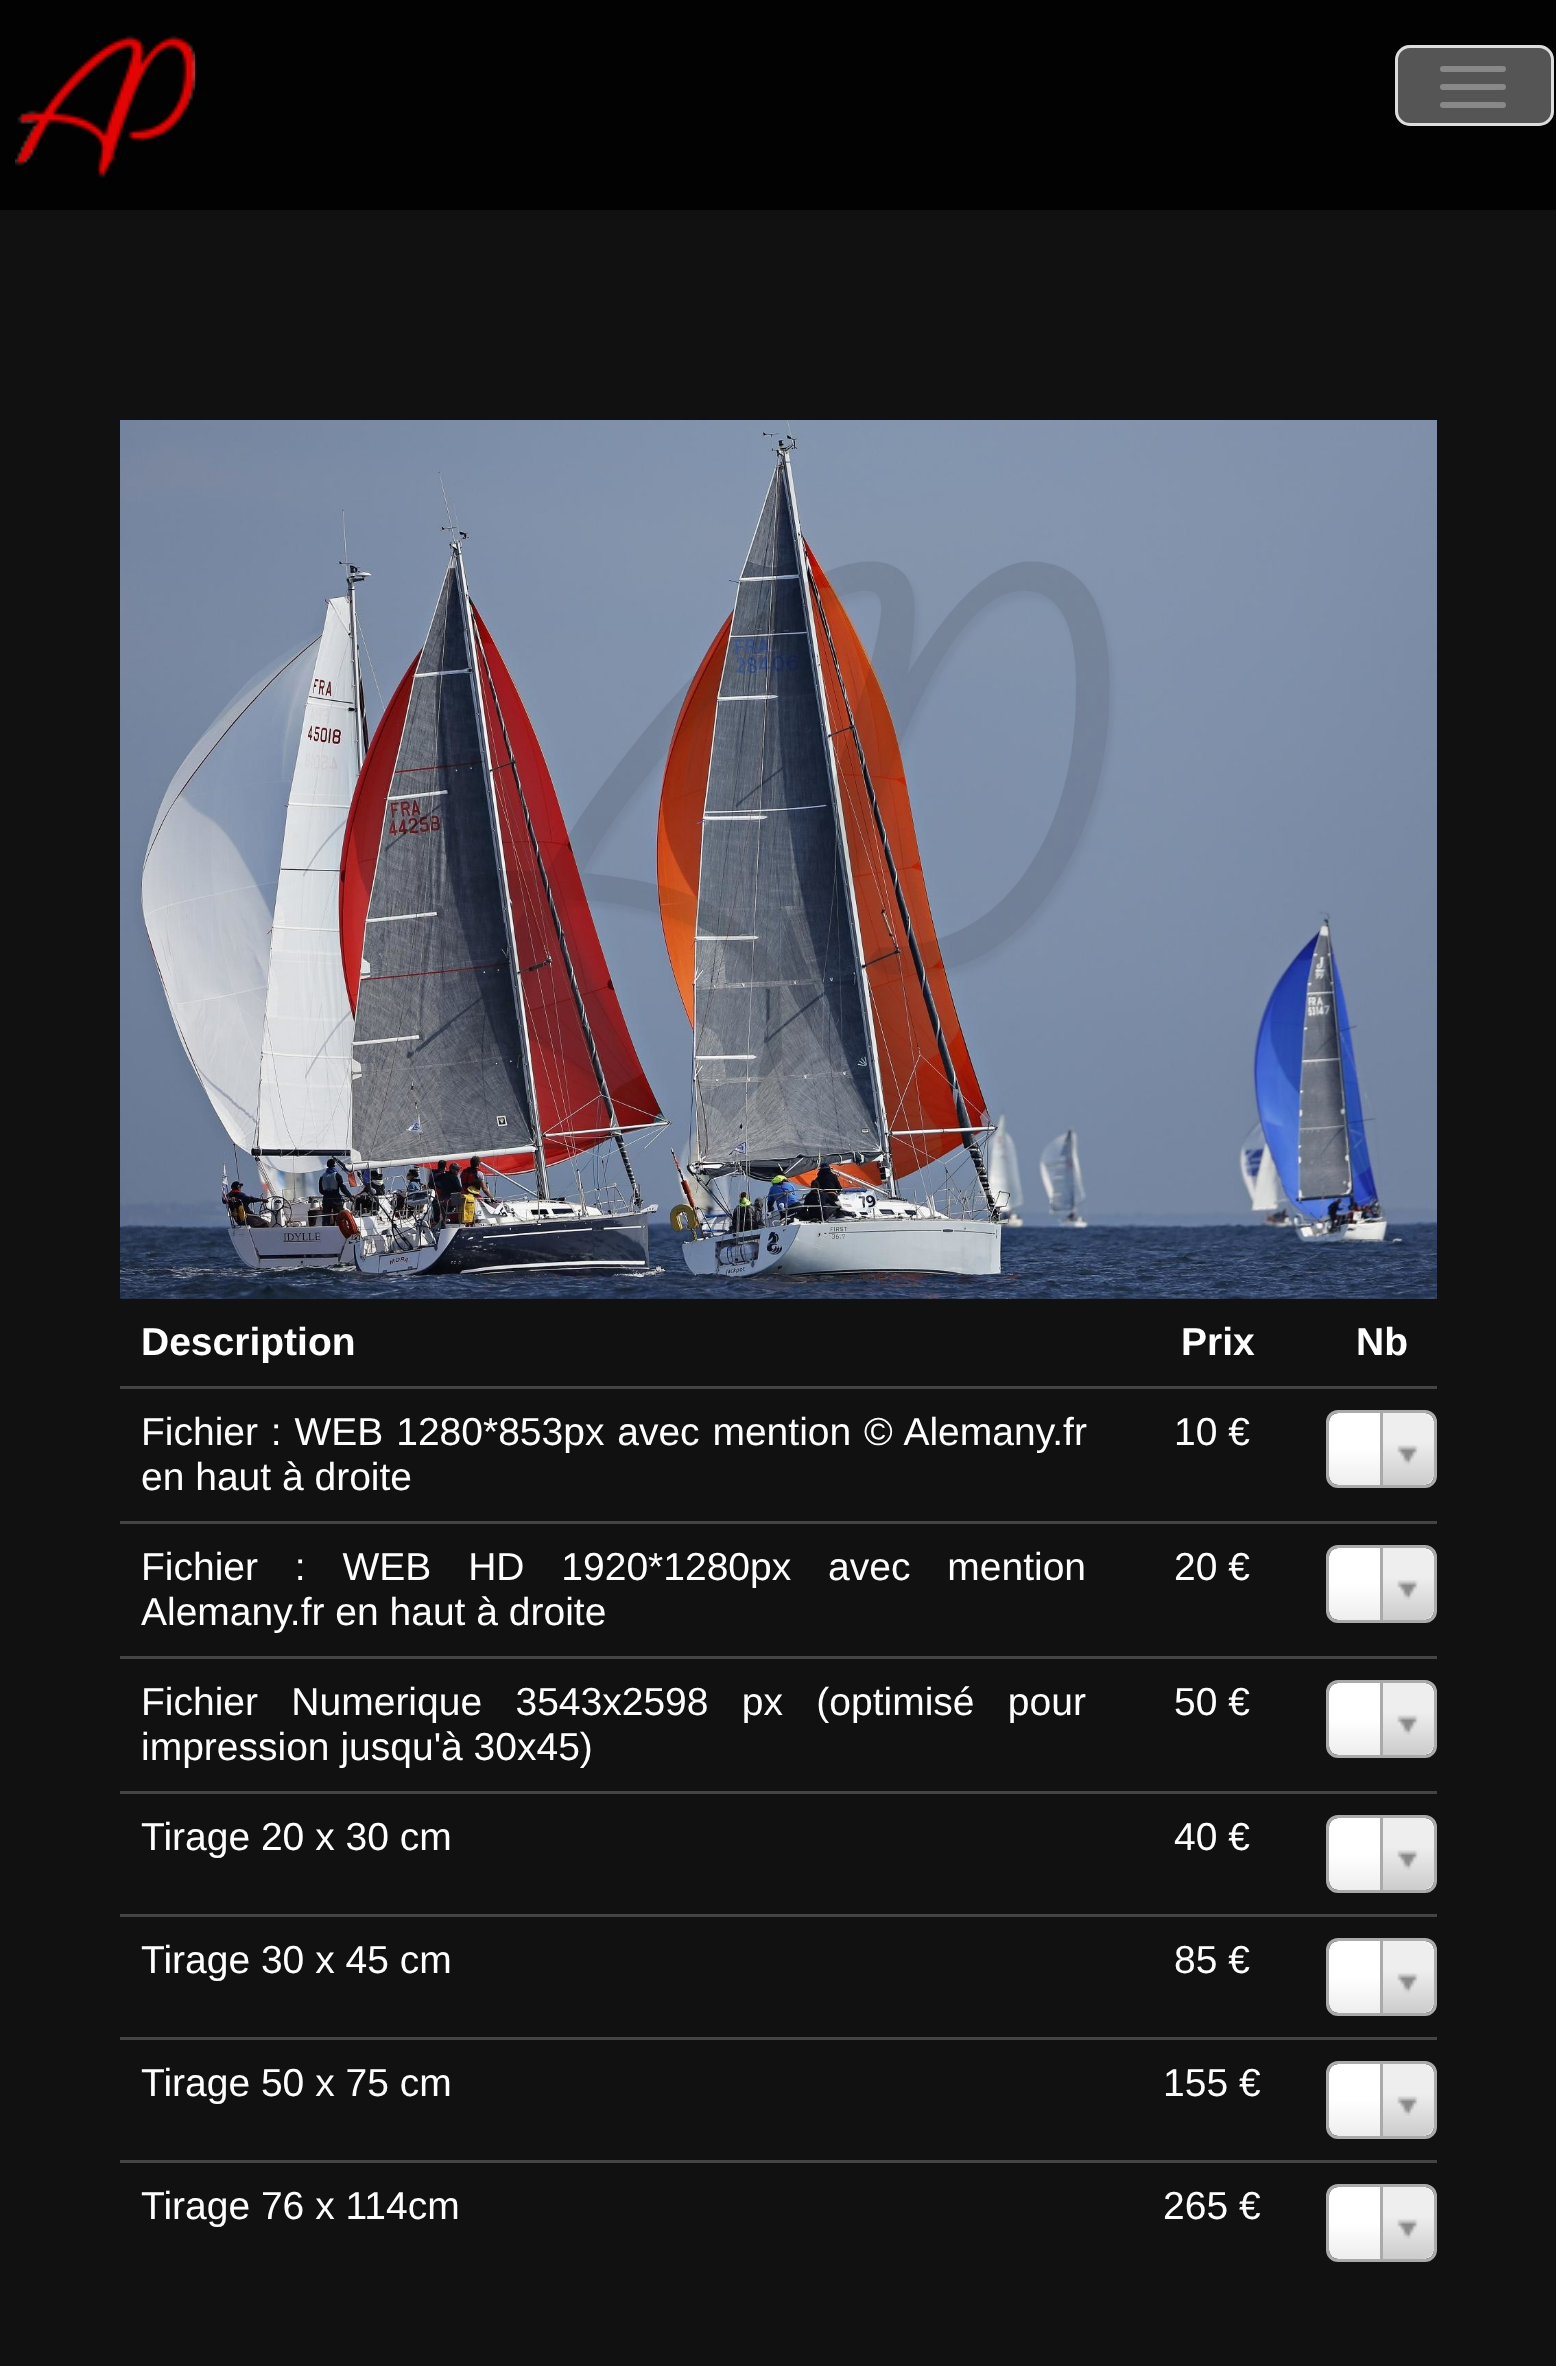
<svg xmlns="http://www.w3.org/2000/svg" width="1556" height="2366">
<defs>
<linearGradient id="g1" gradientUnits="userSpaceOnUse" x1="1329" y1="1485" x2="1329" y2="1413"><stop offset="0" stop-color="#eee"/><stop offset="0.5" stop-color="#fff"/></linearGradient>
<linearGradient id="g2" gradientUnits="userSpaceOnUse" x1="1383" y1="1485" x2="1383" y2="1413"><stop offset="0" stop-color="#ccc"/><stop offset="0.6" stop-color="#eee"/></linearGradient>
<linearGradient id="g3" gradientUnits="userSpaceOnUse" x1="1329" y1="1620" x2="1329" y2="1548"><stop offset="0" stop-color="#eee"/><stop offset="0.5" stop-color="#fff"/></linearGradient>
<linearGradient id="g4" gradientUnits="userSpaceOnUse" x1="1383" y1="1620" x2="1383" y2="1548"><stop offset="0" stop-color="#ccc"/><stop offset="0.6" stop-color="#eee"/></linearGradient>
<linearGradient id="g5" gradientUnits="userSpaceOnUse" x1="1329" y1="1755" x2="1329" y2="1683"><stop offset="0" stop-color="#eee"/><stop offset="0.5" stop-color="#fff"/></linearGradient>
<linearGradient id="g6" gradientUnits="userSpaceOnUse" x1="1383" y1="1755" x2="1383" y2="1683"><stop offset="0" stop-color="#ccc"/><stop offset="0.6" stop-color="#eee"/></linearGradient>
<linearGradient id="g7" gradientUnits="userSpaceOnUse" x1="1329" y1="1890" x2="1329" y2="1818"><stop offset="0" stop-color="#eee"/><stop offset="0.5" stop-color="#fff"/></linearGradient>
<linearGradient id="g8" gradientUnits="userSpaceOnUse" x1="1383" y1="1890" x2="1383" y2="1818"><stop offset="0" stop-color="#ccc"/><stop offset="0.6" stop-color="#eee"/></linearGradient>
<linearGradient id="g9" gradientUnits="userSpaceOnUse" x1="1329" y1="2013" x2="1329" y2="1941"><stop offset="0" stop-color="#eee"/><stop offset="0.5" stop-color="#fff"/></linearGradient>
<linearGradient id="g10" gradientUnits="userSpaceOnUse" x1="1383" y1="2013" x2="1383" y2="1941"><stop offset="0" stop-color="#ccc"/><stop offset="0.6" stop-color="#eee"/></linearGradient>
<linearGradient id="g11" gradientUnits="userSpaceOnUse" x1="1329" y1="2136" x2="1329" y2="2064"><stop offset="0" stop-color="#eee"/><stop offset="0.5" stop-color="#fff"/></linearGradient>
<linearGradient id="g12" gradientUnits="userSpaceOnUse" x1="1383" y1="2136" x2="1383" y2="2064"><stop offset="0" stop-color="#ccc"/><stop offset="0.6" stop-color="#eee"/></linearGradient>
<linearGradient id="g13" gradientUnits="userSpaceOnUse" x1="1329" y1="2259" x2="1329" y2="2187"><stop offset="0" stop-color="#eee"/><stop offset="0.5" stop-color="#fff"/></linearGradient>
<linearGradient id="g14" gradientUnits="userSpaceOnUse" x1="1383" y1="2259" x2="1383" y2="2187"><stop offset="0" stop-color="#ccc"/><stop offset="0.6" stop-color="#eee"/></linearGradient>
</defs>
<rect width="100%" height="100%" fill="#111"/>
<rect width="1556" height="210" fill="#020202"/>
<image x="15" y="35" width="180" height="143" href="media/1.png"/>
<image x="1395" y="45" width="159" height="81" href="media/2.png"/>
<rect x="1396.5" y="46.5" width="156" height="78" rx="13.5" fill="none" stroke="#ddd" stroke-width="3"/>
<rect x="1440" y="66" width="66" height="6" rx="3" fill="#888"/>
<rect x="1440" y="84" width="66" height="6" rx="3" fill="#888"/>
<rect x="1440" y="102" width="66" height="6" rx="3" fill="#888"/>
<image x="120" y="420" width="1317" height="879" href="media/3.png"/>
<text x="141" y="1355" style="font-family:Liberation Sans;font-size:39px;font-weight:bold;fill:#fefefe">Description</text>
<text x="1181" y="1355" style="font-family:Liberation Sans;font-size:39px;font-weight:bold;fill:#fefefe">Prix</text>
<text x="1356" y="1355" style="font-family:Liberation Sans;font-size:39px;font-weight:bold;fill:#fefefe">Nb</text>
<rect x="120" y="1386" width="1317" height="3" fill="#444"/>
<text x="141" y="1445" word-spacing="2" style="font-family:Liberation Sans;font-size:39px;fill:#fefefe">Fichier : WEB 1280*853px avec mention © Alemany.fr</text>
<text x="141" y="1490" style="font-family:Liberation Sans;font-size:39px;fill:#fefefe">en haut à droite</text>
<text x="1174" y="1445" style="font-family:Liberation Sans;font-size:39px;fill:#fefefe">10 €</text>
<rect x="1329" y="1413" width="105" height="72" rx="9" fill="url(#g1)"/>
<rect x="1327.5" y="1411.5" width="108" height="75" rx="10.5" fill="none" stroke="#aaa" stroke-width="3"/>
<path d="M1380 1413h42c6.5 0 12 5.5 12 12v48c0 6.5-5.5 12-12 12h-42z" fill="url(#g2)"/>
<rect x="1380" y="1413" width="3" height="72" fill="#aaa"/>
<image x="1397" y="1445" width="22" height="20" href="media/4.png"/>
<rect x="120" y="1521" width="1317" height="3" fill="#444"/>
<text x="141" y="1580" word-spacing="26" style="font-family:Liberation Sans;font-size:39px;fill:#fefefe">Fichier : WEB HD 1920*1280px avec mention</text>
<text x="141" y="1625" style="font-family:Liberation Sans;font-size:39px;fill:#fefefe">Alemany.fr en haut à droite</text>
<text x="1174" y="1580" style="font-family:Liberation Sans;font-size:39px;fill:#fefefe">20 €</text>
<rect x="1329" y="1548" width="105" height="72" rx="9" fill="url(#g3)"/>
<rect x="1327.5" y="1546.5" width="108" height="75" rx="10.5" fill="none" stroke="#aaa" stroke-width="3"/>
<path d="M1380 1548h42c6.5 0 12 5.5 12 12v48c0 6.5-5.5 12-12 12h-42z" fill="url(#g4)"/>
<rect x="1380" y="1548" width="3" height="72" fill="#aaa"/>
<image x="1397" y="1580" width="22" height="20" href="media/4.png"/>
<rect x="120" y="1656" width="1317" height="3" fill="#444"/>
<text x="141" y="1715" word-spacing="22.5" style="font-family:Liberation Sans;font-size:39px;fill:#fefefe">Fichier Numerique 3543x2598 px (optimisé pour</text>
<text x="141" y="1760" style="font-family:Liberation Sans;font-size:39px;fill:#fefefe">impression jusqu'à 30x45)</text>
<text x="1174" y="1715" style="font-family:Liberation Sans;font-size:39px;fill:#fefefe">50 €</text>
<rect x="1329" y="1683" width="105" height="72" rx="9" fill="url(#g5)"/>
<rect x="1327.5" y="1681.5" width="108" height="75" rx="10.5" fill="none" stroke="#aaa" stroke-width="3"/>
<path d="M1380 1683h42c6.5 0 12 5.5 12 12v48c0 6.5-5.5 12-12 12h-42z" fill="url(#g6)"/>
<rect x="1380" y="1683" width="3" height="72" fill="#aaa"/>
<image x="1397" y="1715" width="22" height="20" href="media/4.png"/>
<rect x="120" y="1791" width="1317" height="3" fill="#444"/>
<text x="141" y="1850" style="font-family:Liberation Sans;font-size:39px;fill:#fefefe">Tirage 20 x 30 cm</text>
<text x="1174" y="1850" style="font-family:Liberation Sans;font-size:39px;fill:#fefefe">40 €</text>
<rect x="1329" y="1818" width="105" height="72" rx="9" fill="url(#g7)"/>
<rect x="1327.5" y="1816.5" width="108" height="75" rx="10.5" fill="none" stroke="#aaa" stroke-width="3"/>
<path d="M1380 1818h42c6.5 0 12 5.5 12 12v48c0 6.5-5.5 12-12 12h-42z" fill="url(#g8)"/>
<rect x="1380" y="1818" width="3" height="72" fill="#aaa"/>
<image x="1397" y="1850" width="22" height="20" href="media/4.png"/>
<rect x="120" y="1914" width="1317" height="3" fill="#444"/>
<text x="141" y="1973" style="font-family:Liberation Sans;font-size:39px;fill:#fefefe">Tirage 30 x 45 cm</text>
<text x="1174" y="1973" style="font-family:Liberation Sans;font-size:39px;fill:#fefefe">85 €</text>
<rect x="1329" y="1941" width="105" height="72" rx="9" fill="url(#g9)"/>
<rect x="1327.5" y="1939.5" width="108" height="75" rx="10.5" fill="none" stroke="#aaa" stroke-width="3"/>
<path d="M1380 1941h42c6.5 0 12 5.5 12 12v48c0 6.5-5.5 12-12 12h-42z" fill="url(#g10)"/>
<rect x="1380" y="1941" width="3" height="72" fill="#aaa"/>
<image x="1397" y="1973" width="22" height="20" href="media/4.png"/>
<rect x="120" y="2037" width="1317" height="3" fill="#444"/>
<text x="141" y="2096" style="font-family:Liberation Sans;font-size:39px;fill:#fefefe">Tirage 50 x 75 cm</text>
<text x="1163" y="2096" style="font-family:Liberation Sans;font-size:39px;fill:#fefefe">155 €</text>
<rect x="1329" y="2064" width="105" height="72" rx="9" fill="url(#g11)"/>
<rect x="1327.5" y="2062.5" width="108" height="75" rx="10.5" fill="none" stroke="#aaa" stroke-width="3"/>
<path d="M1380 2064h42c6.5 0 12 5.5 12 12v48c0 6.5-5.5 12-12 12h-42z" fill="url(#g12)"/>
<rect x="1380" y="2064" width="3" height="72" fill="#aaa"/>
<image x="1397" y="2096" width="22" height="20" href="media/4.png"/>
<rect x="120" y="2160" width="1317" height="3" fill="#444"/>
<text x="141" y="2219" style="font-family:Liberation Sans;font-size:39px;fill:#fefefe">Tirage 76 x 114cm</text>
<text x="1163" y="2219" style="font-family:Liberation Sans;font-size:39px;fill:#fefefe">265 €</text>
<rect x="1329" y="2187" width="105" height="72" rx="9" fill="url(#g13)"/>
<rect x="1327.5" y="2185.5" width="108" height="75" rx="10.5" fill="none" stroke="#aaa" stroke-width="3"/>
<path d="M1380 2187h42c6.5 0 12 5.5 12 12v48c0 6.5-5.5 12-12 12h-42z" fill="url(#g14)"/>
<rect x="1380" y="2187" width="3" height="72" fill="#aaa"/>
<image x="1397" y="2219" width="22" height="20" href="media/4.png"/>
</svg>
